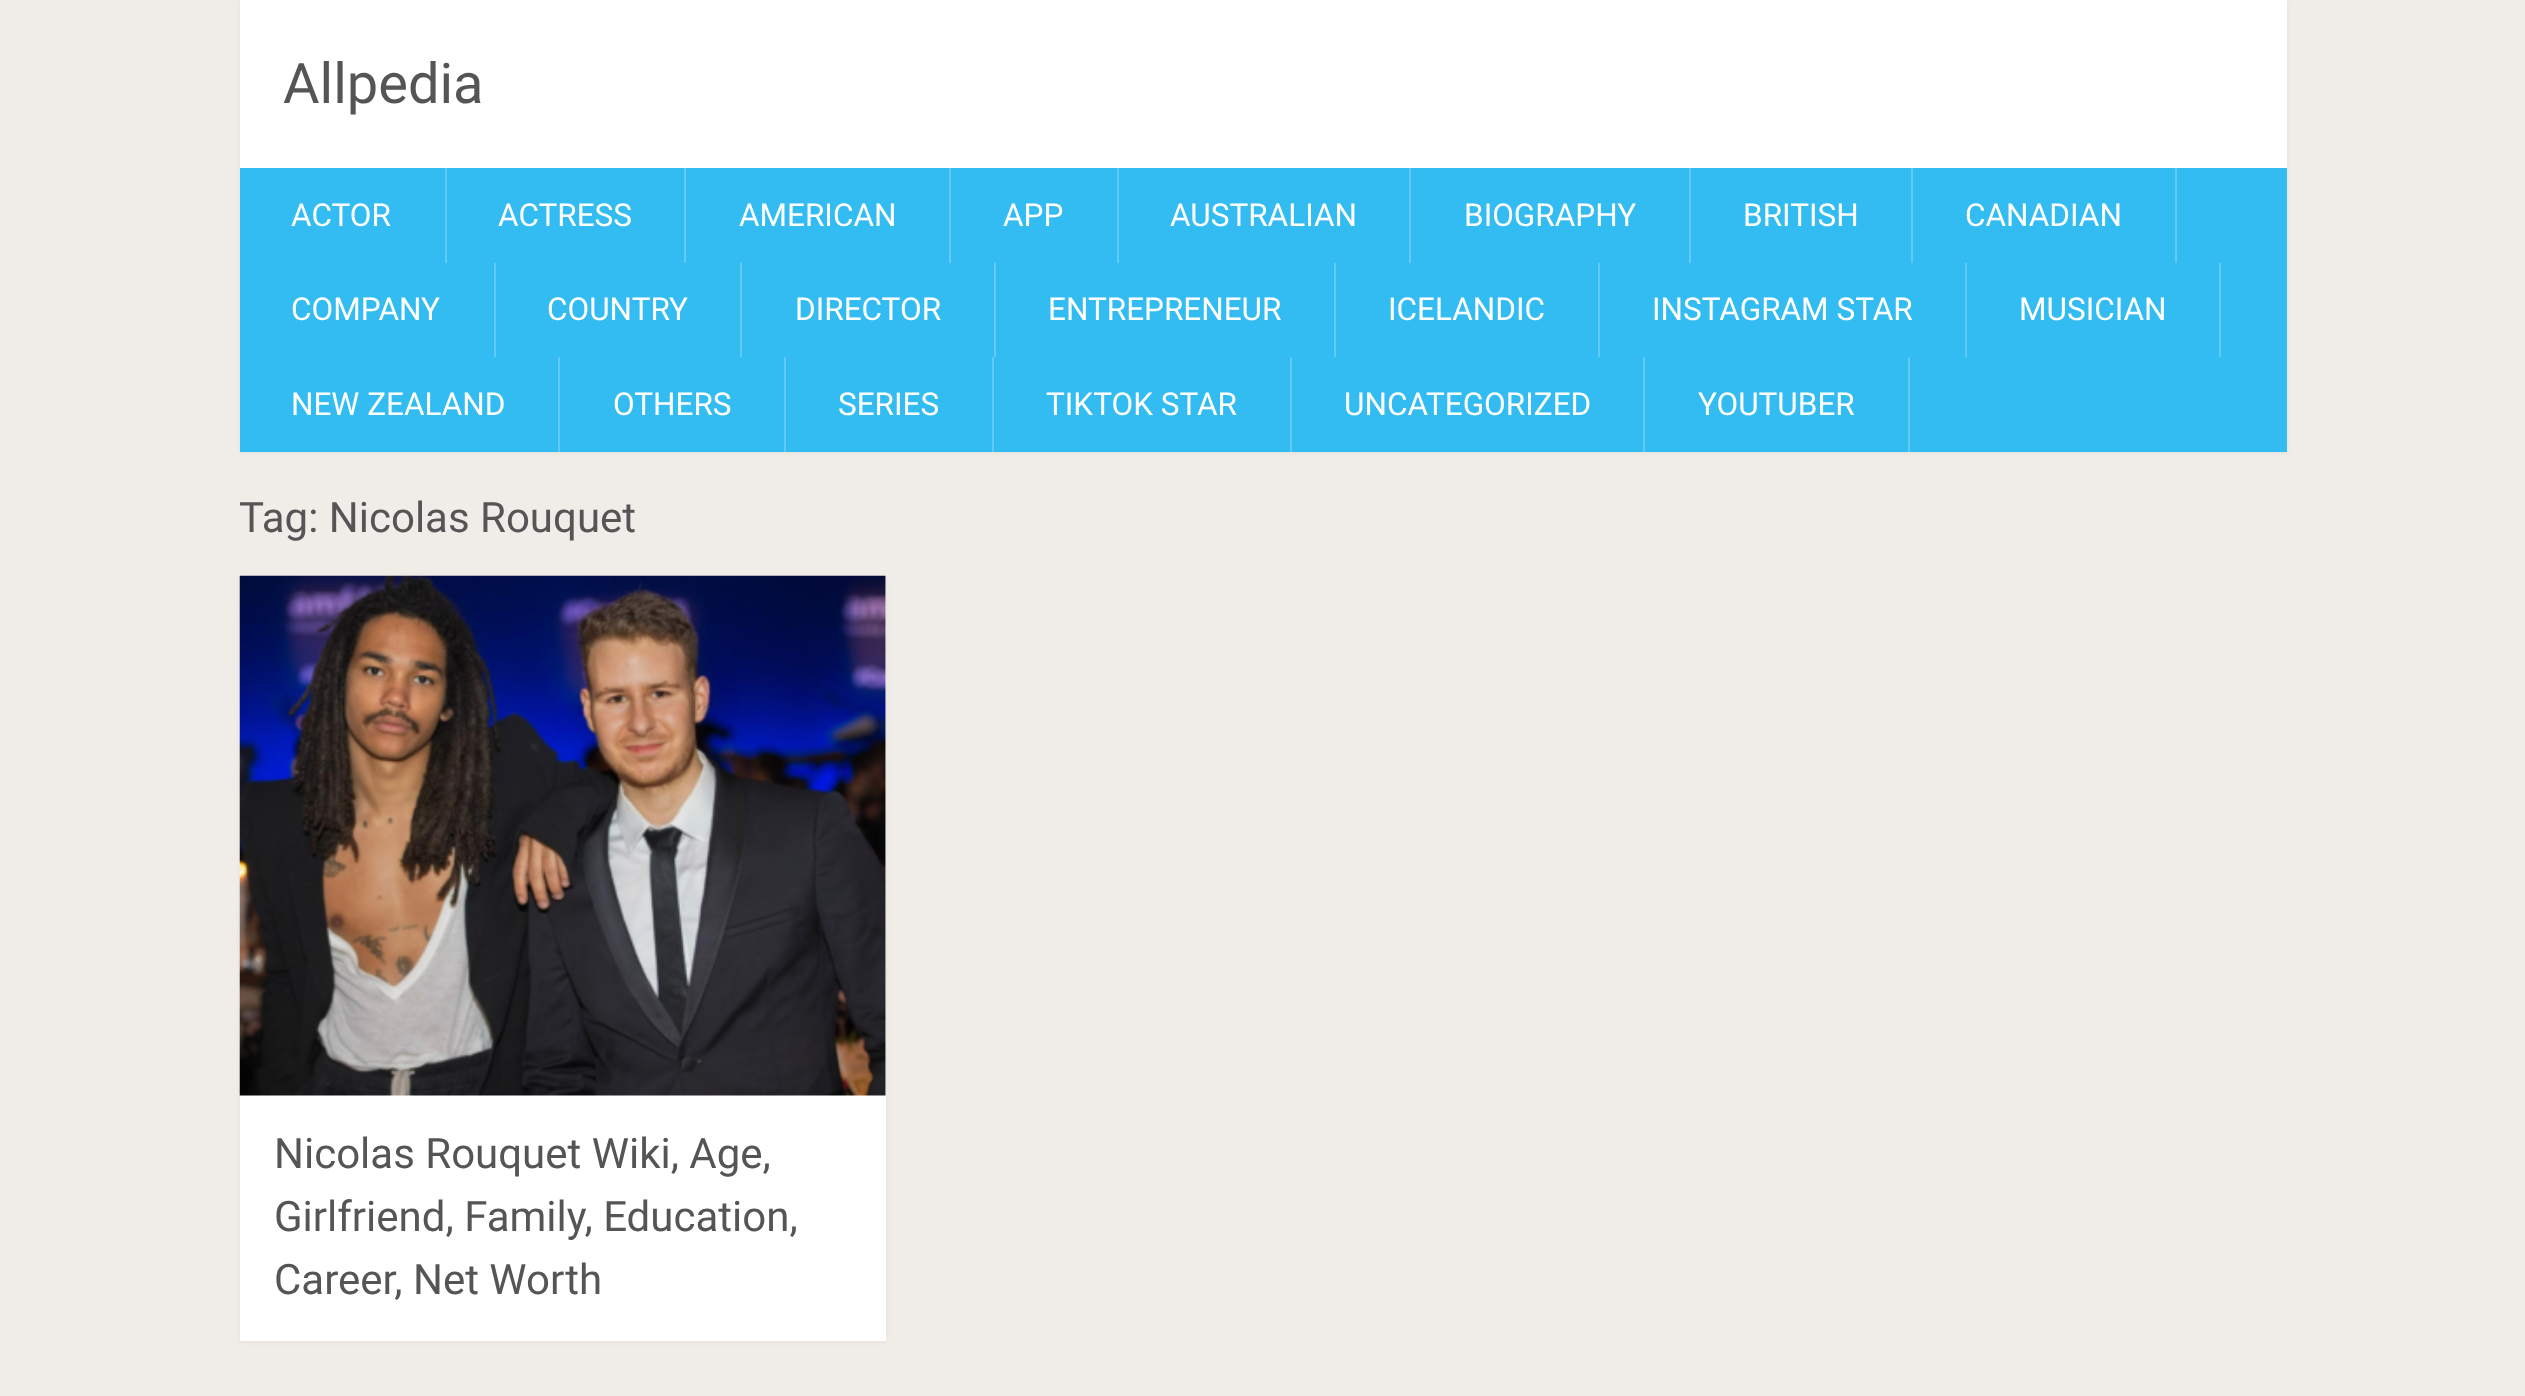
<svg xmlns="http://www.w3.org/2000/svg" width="2525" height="1396">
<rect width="100%" height="100%" fill="#f0ede9"/>
<rect x="240" y="2" width="2047" height="451" fill="#0000000d" filter="blur(2px)"/>
<rect x="240" width="2047" height="168" fill="#fff"/>
<text x="283" y="103" style="font-family:Roboto;font-size:56px;fill:#555">Allpedia</text>
<rect x="240" y="168" width="2047" height="284" fill="#33bcf2"/>
<rect x="445" y="168" width="2" height="95" fill="#60cbf5"/>
<text x="291" y="226" style="font-family:Roboto;font-size:31.5px;fill:#fff">ACTOR</text>
<rect x="684" y="168" width="2" height="95" fill="#60cbf5"/>
<text x="498" y="226" style="font-family:Roboto;font-size:31.5px;fill:#fff">ACTRESS</text>
<rect x="949" y="168" width="2" height="95" fill="#60cbf5"/>
<text x="739" y="226" style="font-family:Roboto;font-size:31.5px;fill:#fff">AMERICAN</text>
<rect x="1117" y="168" width="2" height="95" fill="#60cbf5"/>
<text x="1003" y="226" style="font-family:Roboto;font-size:31.5px;fill:#fff">APP</text>
<rect x="1409" y="168" width="2" height="95" fill="#60cbf5"/>
<text x="1170" y="226" style="font-family:Roboto;font-size:31.5px;fill:#fff">AUSTRALIAN</text>
<rect x="1689" y="168" width="2" height="95" fill="#60cbf5"/>
<text x="1464" y="226" style="font-family:Roboto;font-size:31.5px;fill:#fff">BIOGRAPHY</text>
<rect x="1911" y="168" width="2" height="95" fill="#60cbf5"/>
<text x="1743" y="226" style="font-family:Roboto;font-size:31.5px;fill:#fff">BRITISH</text>
<rect x="2175" y="168" width="2" height="95" fill="#60cbf5"/>
<text x="1965" y="226" style="font-family:Roboto;font-size:31.5px;fill:#fff">CANADIAN</text>
<rect x="494" y="263" width="2" height="94" fill="#60cbf5"/>
<text x="291" y="320" style="font-family:Roboto;font-size:31.5px;fill:#fff">COMPANY</text>
<rect x="740" y="263" width="2" height="94" fill="#60cbf5"/>
<text x="547" y="320" style="font-family:Roboto;font-size:31.5px;fill:#fff">COUNTRY</text>
<rect x="994" y="263" width="2" height="94" fill="#60cbf5"/>
<text x="795" y="320" style="font-family:Roboto;font-size:31.5px;fill:#fff">DIRECTOR</text>
<rect x="1334" y="263" width="2" height="94" fill="#60cbf5"/>
<text x="1048" y="320" style="font-family:Roboto;font-size:31.5px;fill:#fff">ENTREPRENEUR</text>
<rect x="1598" y="263" width="2" height="94" fill="#60cbf5"/>
<text x="1388" y="320" style="font-family:Roboto;font-size:31.5px;fill:#fff">ICELANDIC</text>
<rect x="1965" y="263" width="2" height="94" fill="#60cbf5"/>
<text x="1652" y="320" style="font-family:Roboto;font-size:31.5px;fill:#fff">INSTAGRAM STAR</text>
<rect x="2219" y="263" width="2" height="94" fill="#60cbf5"/>
<text x="2019" y="320" style="font-family:Roboto;font-size:31.5px;fill:#fff">MUSICIAN</text>
<rect x="558" y="357" width="2" height="95" fill="#60cbf5"/>
<text x="291" y="415" style="font-family:Roboto;font-size:31.5px;fill:#fff">NEW ZEALAND</text>
<rect x="784" y="357" width="2" height="95" fill="#60cbf5"/>
<text x="613" y="415" style="font-family:Roboto;font-size:31.5px;fill:#fff">OTHERS</text>
<rect x="992" y="357" width="2" height="95" fill="#60cbf5"/>
<text x="838" y="415" style="font-family:Roboto;font-size:31.5px;fill:#fff">SERIES</text>
<rect x="1290" y="357" width="2" height="95" fill="#60cbf5"/>
<text x="1046" y="415" style="font-family:Roboto;font-size:31.5px;fill:#fff">TIKTOK STAR</text>
<rect x="1643" y="357" width="2" height="95" fill="#60cbf5"/>
<text x="1344" y="415" style="font-family:Roboto;font-size:31.5px;fill:#fff">UNCATEGORIZED</text>
<rect x="1908" y="357" width="2" height="95" fill="#60cbf5"/>
<text x="1698" y="415" style="font-family:Roboto;font-size:31.5px;fill:#fff">YOUTUBER</text>
<text x="239" y="532" style="font-family:Roboto;font-size:42px;fill:#555">Tag: Nicolas Rouquet</text>
<rect x="240" y="578" width="646" height="764" fill="#0000000d" filter="blur(2px)"/>
<rect x="240" y="576" width="646" height="765" fill="#fff"/>
<image x="239" y="575" width="647" height="521" href="media/1.png"/>
<text x="274" y="1168" style="font-family:Roboto;font-size:42px;fill:#555">Nicolas Rouquet Wiki, Age,</text>
<text x="274" y="1231" style="font-family:Roboto;font-size:42px;fill:#555">Girlfriend, Family, Education,</text>
<text x="274" y="1294" style="font-family:Roboto;font-size:42px;fill:#555">Career, Net Worth</text>
</svg>
